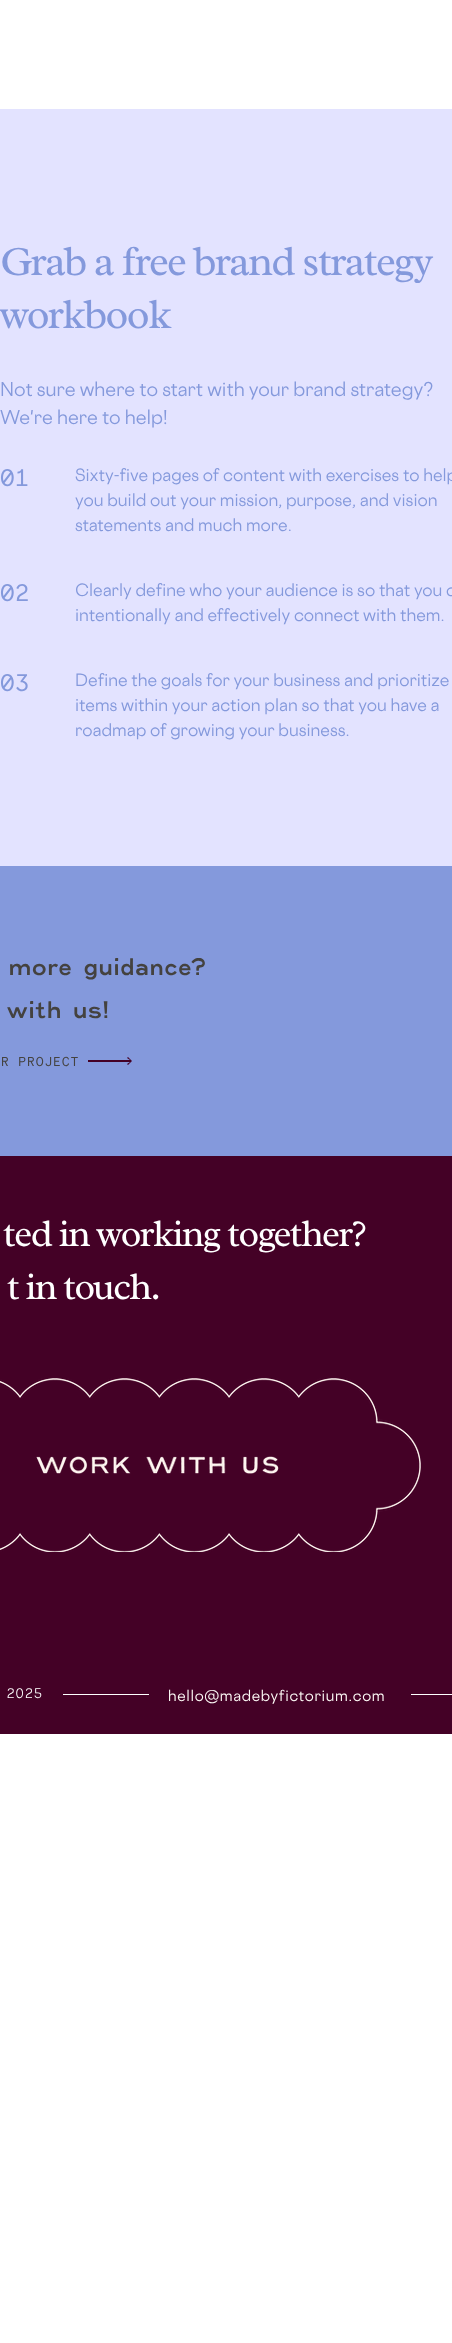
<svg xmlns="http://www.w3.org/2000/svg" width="452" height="2343">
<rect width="100%" height="100%" fill="#fff"/>
<rect y="109" width="452" height="757" fill="#e3e3ff"/>
<text x="0" y="275" style="font-family:Radley;font-size:42px;letter-spacing:-1.7px;fill:#8499dc">Grab a free brand strategy</text>
<text x="0" y="328" style="font-family:Radley;font-size:42px;letter-spacing:-1.7px;fill:#8499dc">workbook</text>
<text x="0" y="396" style="font-family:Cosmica;font-size:18px;fill:#8499dc">Not sure where to start with your brand strategy?</text>
<text x="0" y="424" style="font-family:Cosmica;font-size:18px;fill:#8499dc">We're here to help!</text>
<text x="0" y="486" style="font-family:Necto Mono;font-size:24px;fill:#8499dc">01</text>
<text x="75" y="481" style="font-family:Cosmica;font-size:16px;fill:#8499dc">Sixty-five pages of content with exercises to help</text>
<text x="75" y="506" style="font-family:Cosmica;font-size:16px;fill:#8499dc">you build out your mission, purpose, and vision</text>
<text x="75" y="531" style="font-family:Cosmica;font-size:16px;fill:#8499dc">statements and much more.</text>
<text x="0" y="601" style="font-family:Necto Mono;font-size:24px;fill:#8499dc">02</text>
<text x="75" y="596" style="font-family:Cosmica;font-size:16px;fill:#8499dc">Clearly define who your audience is so that you c</text>
<text x="75" y="621" style="font-family:Cosmica;font-size:16px;fill:#8499dc">intentionally and effectively connect with them.</text>
<text x="0" y="691" style="font-family:Necto Mono;font-size:24px;fill:#8499dc">03</text>
<text x="75" y="686" style="font-family:Cosmica;font-size:16px;fill:#8499dc">Define the goals for your business and prioritize</text>
<text x="75" y="711" style="font-family:Cosmica;font-size:16px;fill:#8499dc">items within your action plan so that you have a</text>
<text x="75" y="736" style="font-family:Cosmica;font-size:16px;fill:#8499dc">roadmap of growing your business.</text>
<rect y="866" width="452" height="290" fill="#8499dc"/>
<text x="9" y="975" style="font-family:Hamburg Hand;font-size:24px;letter-spacing:1.4px;fill:#44423f">more guidance?</text>
<text x="7" y="1018" style="font-family:Hamburg Hand;font-size:24px;letter-spacing:1.4px;fill:#44423f">with us!</text>
<text x="1" y="1066" style="font-family:Necto Mono;font-size:13px;letter-spacing:0.75px;fill:#44423f">R PROJECT</text>
<path d="M128 1065l4-4l-4-4l-1 1l3 2h-42v2h42l-3 2z" fill="#440126"/>
<rect y="1156" width="452" height="578" fill="#440126"/>
<text x="3" y="1246" style="font-family:Radley;font-size:38px;letter-spacing:-1.5px;fill:#fff">ted in working together?</text>
<text x="7" y="1299" style="font-family:Radley;font-size:38px;letter-spacing:-1.5px;fill:#fff">t in touch.</text>
<image x="0" y="1378" width="421" height="174" href="media/1.png"/>
<text x="6" y="1698" style="font-family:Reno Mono;font-size:14px;fill:#fff">2025</text>
<rect x="63" y="1694" width="86" height="1" fill="#fff"/>
<text x="168" y="1701" style="font-family:Cosmica;font-size:14px;letter-spacing:0.7px;fill:#fffcf8">hello@madebyfictorium.com</text>
<rect x="411" y="1694" width="41" height="1" fill="#fff"/>
</svg>
